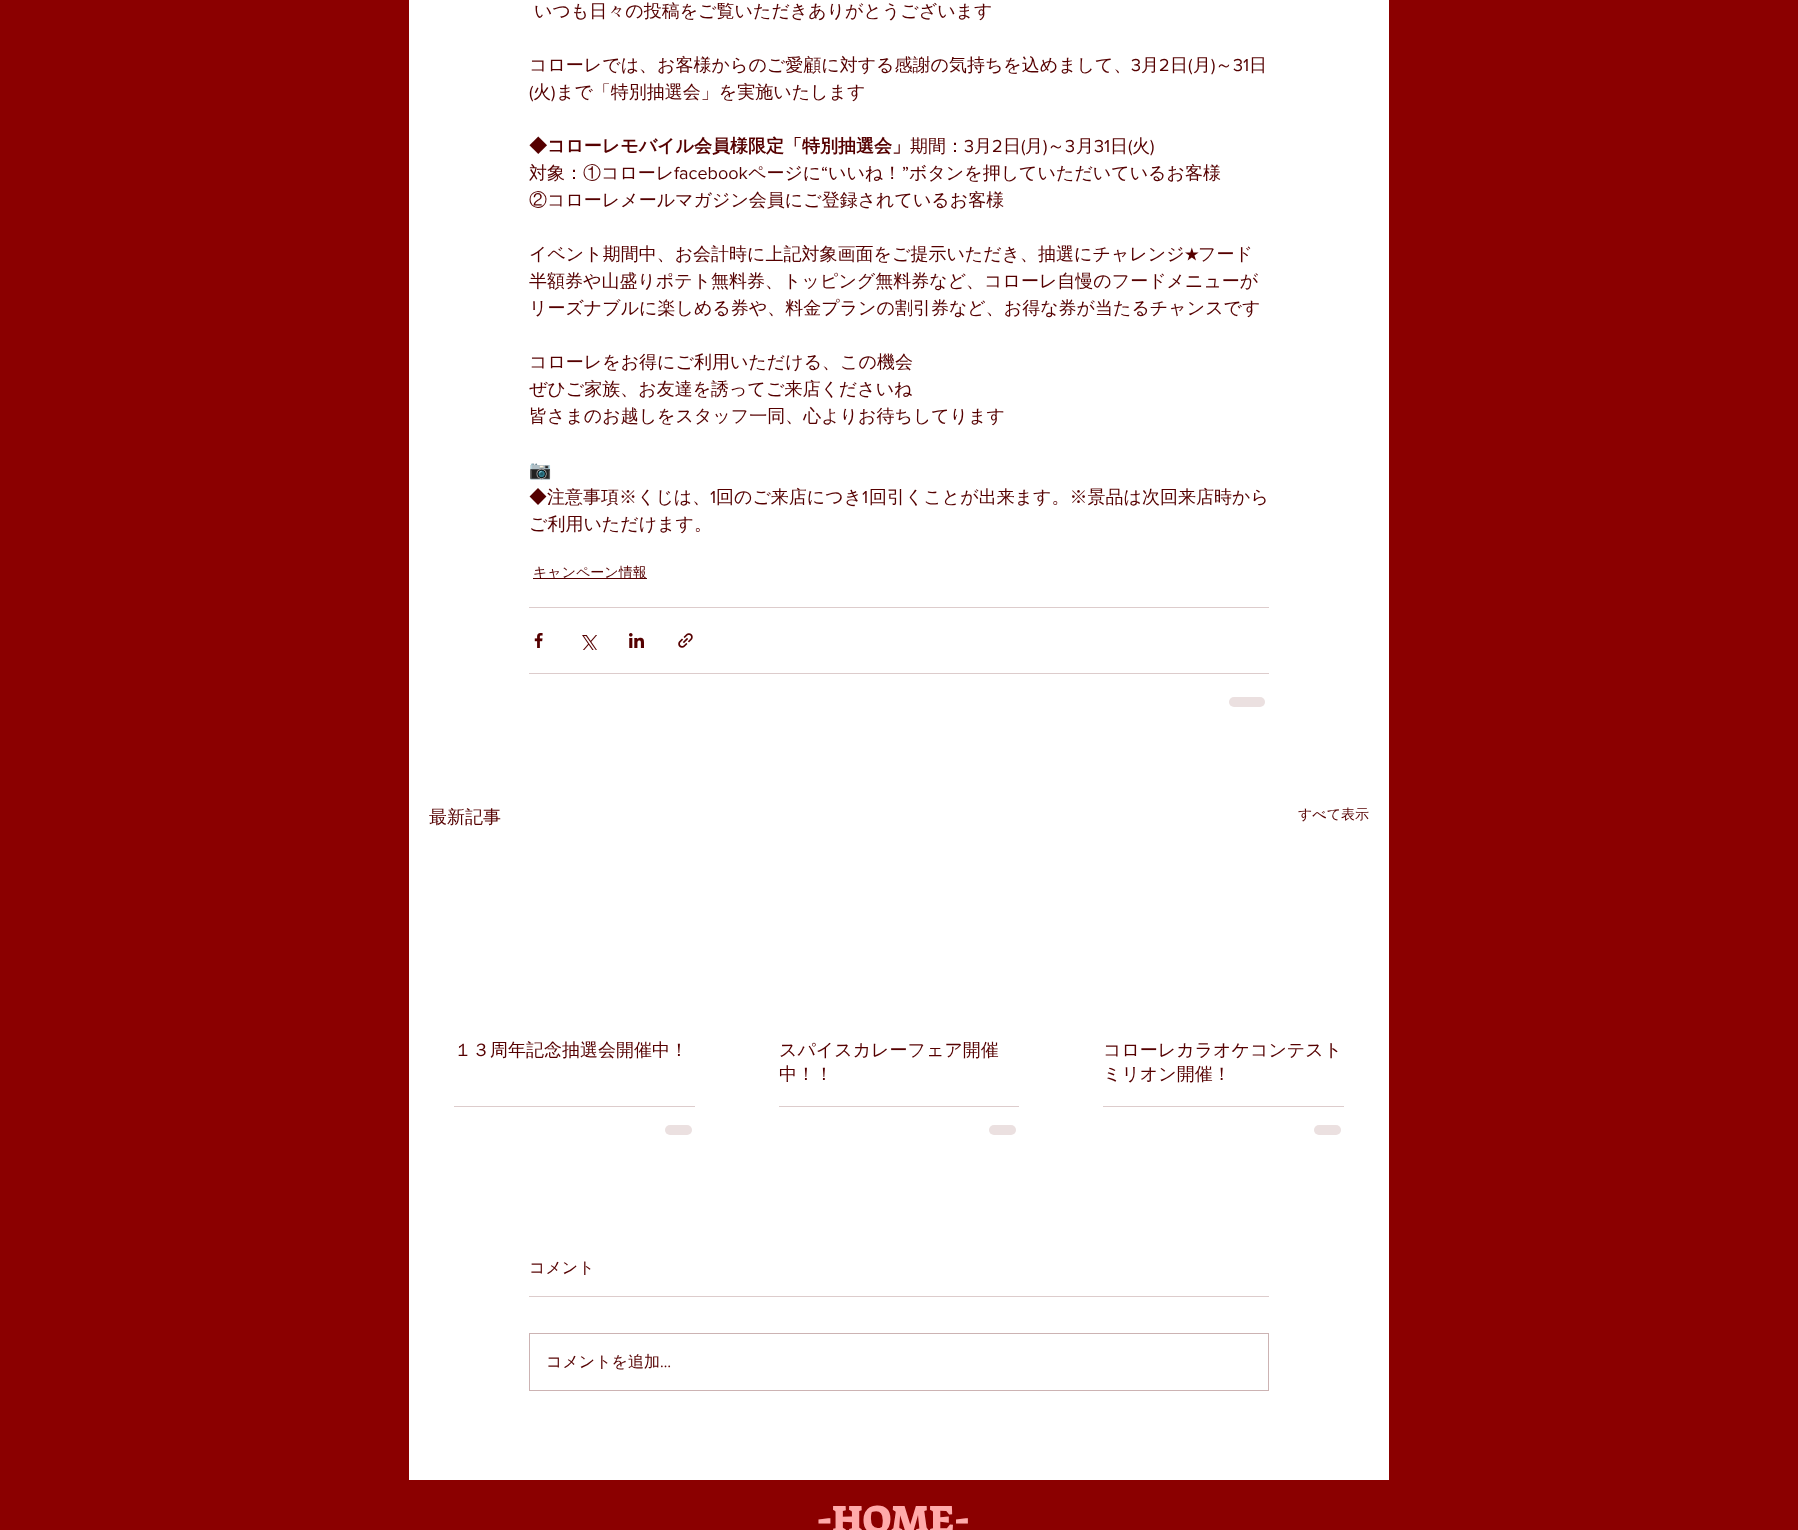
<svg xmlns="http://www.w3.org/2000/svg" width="1798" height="1530">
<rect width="100%" height="100%" fill="#8b0000"/>
<rect x="409" width="980" height="1480" fill="#fff"/>
<text x="534" y="17" style="font-family:WenQuanYi Zen Hei;font-size:18px;font-weight:500;fill:#500">いつも日々の投稿をご覧いただきありがとうございます</text>
<text x="529" y="71" style="font-family:WenQuanYi Zen Hei;font-size:18px;font-weight:500;fill:#500">コローレでは、お客様からのご愛顧に対する感謝の気持ちを込めまして、</text>
<text x="1131" y="71" style="font-family:'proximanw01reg';font-size:18px;fill:#500">3</text>
<text x="1141" y="71" style="font-family:WenQuanYi Zen Hei;font-size:18px;font-weight:500;fill:#500">月</text>
<text x="1159" y="71" style="font-family:'proximanw01reg';font-size:18px;fill:#500">2</text>
<text x="1170" y="71" style="font-family:WenQuanYi Zen Hei;font-size:18px;font-weight:500;fill:#500">日</text>
<text x="1188" y="71" style="font-family:'proximanw01reg';font-size:18px;fill:#500">(</text>
<text x="1193" y="71" style="font-family:WenQuanYi Zen Hei;font-size:18px;font-weight:500;fill:#500">月</text>
<text x="1211" y="71" style="font-family:'proximanw01reg';font-size:18px;fill:#500">)</text>
<text x="1215" y="71" style="font-family:WenQuanYi Zen Hei;font-size:18px;font-weight:500;fill:#500">～</text>
<text x="1233" y="71" style="font-family:'proximanw01reg';font-size:18px;fill:#500">31</text>
<text x="1249" y="71" style="font-family:WenQuanYi Zen Hei;font-size:18px;font-weight:500;fill:#500">日</text>
<text x="529" y="98" style="font-family:'proximanw01reg';font-size:18px;fill:#500">(</text>
<text x="533" y="98" style="font-family:WenQuanYi Zen Hei;font-size:18px;font-weight:500;fill:#500">火</text>
<text x="551" y="98" style="font-family:'proximanw01reg';font-size:18px;fill:#500">)</text>
<text x="556" y="98" style="font-family:WenQuanYi Zen Hei;font-size:18px;font-weight:500;fill:#500">まで「特別抽選会」を実施いたします</text>
<text x="529" y="152" style="font-family:WenQuanYi Zen Hei;font-size:18px;font-weight:bold;fill:#500">◆コローレモバイル会員様限定「特別抽選会」</text>
<text x="910" y="152" style="font-family:WenQuanYi Zen Hei;font-size:18px;font-weight:500;fill:#500">期間：</text>
<text x="964" y="152" style="font-family:'proximanw01reg';font-size:18px;fill:#500">3</text>
<text x="974" y="152" style="font-family:WenQuanYi Zen Hei;font-size:18px;font-weight:500;fill:#500">月</text>
<text x="992" y="152" style="font-family:'proximanw01reg';font-size:18px;fill:#500">2</text>
<text x="1003" y="152" style="font-family:WenQuanYi Zen Hei;font-size:18px;font-weight:500;fill:#500">日</text>
<text x="1021" y="152" style="font-family:'proximanw01reg';font-size:18px;fill:#500">(</text>
<text x="1025" y="152" style="font-family:WenQuanYi Zen Hei;font-size:18px;font-weight:500;fill:#500">月</text>
<text x="1043" y="152" style="font-family:'proximanw01reg';font-size:18px;fill:#500">)</text>
<text x="1047" y="152" style="font-family:WenQuanYi Zen Hei;font-size:18px;font-weight:500;fill:#500">～</text>
<text x="1065" y="152" style="font-family:'proximanw01reg';font-size:18px;fill:#500">3</text>
<text x="1076" y="152" style="font-family:WenQuanYi Zen Hei;font-size:18px;font-weight:500;fill:#500">月</text>
<text x="1094" y="152" style="font-family:'proximanw01reg';font-size:18px;fill:#500">31</text>
<text x="1110" y="152" style="font-family:WenQuanYi Zen Hei;font-size:18px;font-weight:500;fill:#500">日</text>
<text x="1128" y="152" style="font-family:'proximanw01reg';font-size:18px;fill:#500">(</text>
<text x="1132" y="152" style="font-family:WenQuanYi Zen Hei;font-size:18px;font-weight:500;fill:#500">火</text>
<text x="1150" y="152" style="font-family:'proximanw01reg';font-size:18px;fill:#500">)</text>
<text x="529" y="179" style="font-family:WenQuanYi Zen Hei;font-size:18px;font-weight:500;fill:#500">対象：①コローレ</text>
<text x="674" y="179" style="font-family:'proximanw01reg';font-size:18px;fill:#500">facebook</text>
<text x="748" y="179" style="font-family:WenQuanYi Zen Hei;font-size:18px;font-weight:500;fill:#500">ページに</text>
<text x="821" y="179" style="font-family:'proximanw01reg';font-size:18px;fill:#500">“</text>
<text x="828" y="179" style="font-family:WenQuanYi Zen Hei;font-size:18px;font-weight:500;fill:#500">いいね！</text>
<text x="902" y="179" style="font-family:'proximanw01reg';font-size:18px;fill:#500">”</text>
<text x="909" y="179" style="font-family:WenQuanYi Zen Hei;font-size:18px;font-weight:500;fill:#500">ボタンを押していただいているお客様</text>
<text x="529" y="206" style="font-family:WenQuanYi Zen Hei;font-size:18px;font-weight:500;fill:#500">②コローレメールマガジン会員にご登録されているお客様</text>
<text x="529" y="260" style="font-family:WenQuanYi Zen Hei;font-size:18px;font-weight:500;fill:#500">イベント期間中、お会計時に上記対象画面をご提示いただき、抽選にチャレンジ</text>
<text x="1185" y="260" style="font-family:'proximanw01reg';font-size:18px;fill:#500">★</text>
<text x="1198" y="260" style="font-family:WenQuanYi Zen Hei;font-size:18px;font-weight:500;fill:#500">フード</text>
<text x="529" y="287" style="font-family:WenQuanYi Zen Hei;font-size:18px;font-weight:500;fill:#500">半額券や山盛りポテト無料券、トッピング無料券など、コローレ自慢のフードメニューが</text>
<text x="529" y="314" style="font-family:WenQuanYi Zen Hei;font-size:18px;font-weight:500;fill:#500">リーズナブルに楽しめる券や、料金プランの割引券など、お得な券が当たるチャンスです</text>
<text x="529" y="368" style="font-family:WenQuanYi Zen Hei;font-size:18px;font-weight:500;fill:#500">コローレをお得にご利用いただける、この機会</text>
<text x="529" y="395" style="font-family:WenQuanYi Zen Hei;font-size:18px;font-weight:500;fill:#500">ぜひご家族、お友達を誘ってご来店くださいね</text>
<text x="529" y="422" style="font-family:WenQuanYi Zen Hei;font-size:18px;font-weight:500;fill:#500">皆さまのお越しをスタッフ一同、心よりお待ちしてります</text>
<text x="529" y="476" style="font-family:Noto Color Emoji;font-size:18px;fill:#500">📷</text>
<text x="529" y="503" style="font-family:WenQuanYi Zen Hei;font-size:18px;font-weight:500;fill:#500">◆注意事項※くじは、</text>
<text x="710" y="503" style="font-family:'proximanw01reg';font-size:18px;fill:#500">1</text>
<text x="716" y="503" style="font-family:WenQuanYi Zen Hei;font-size:18px;font-weight:500;fill:#500">回のご来店につき</text>
<text x="862" y="503" style="font-family:'proximanw01reg';font-size:18px;fill:#500">1</text>
<text x="869" y="503" style="font-family:WenQuanYi Zen Hei;font-size:18px;font-weight:500;fill:#500">回引くことが出来ます。※景品は次回来店時から</text>
<text x="529" y="530" style="font-family:WenQuanYi Zen Hei;font-size:18px;font-weight:500;fill:#500">ご利用いただけます。</text>
<rect x="533" y="578" width="114" height="1" fill="#500"/>
<text x="533" y="577" style="font-family:WenQuanYi Zen Hei;font-size:14px;font-weight:500;fill:#500">キャンペーン情報</text>
<rect x="529" y="607" width="740" height="1" fill="#dcc"/>
<image x="534" y="633" width="9" height="15" href="media/1.png"/>
<image x="582" y="635" width="15" height="15" href="media/2.png"/>
<image x="629" y="633" width="15" height="15" href="media/3.png"/>
<image x="678" y="633" width="15" height="15" href="media/4.png"/>
<rect x="529" y="673" width="740" height="1" fill="#dcc"/>
<rect x="1229" y="697" width="36" height="10" rx="5" fill="#ebe0e0"/>
<text x="429" y="823" style="font-family:WenQuanYi Zen Hei;font-size:18px;font-weight:500;fill:#500">最新記事</text>
<text x="1298" y="819" style="font-family:WenQuanYi Zen Hei;font-size:14px;font-weight:500;fill:#500">すべて表示</text>
<text x="454" y="1056" style="font-family:WenQuanYi Zen Hei;font-size:18px;font-weight:500;fill:#500">１３周年記念抽選会開催中！</text>
<rect x="454" y="1106" width="241" height="1" fill="#dcc"/>
<rect x="665" y="1125" width="27" height="10" rx="5" fill="#ebe0e0"/>
<text x="779" y="1056" style="font-family:WenQuanYi Zen Hei;font-size:18px;font-weight:500;fill:#500">スパイスカレーフェア開催</text>
<text x="779" y="1080" style="font-family:WenQuanYi Zen Hei;font-size:18px;font-weight:500;fill:#500">中！！</text>
<rect x="779" y="1106" width="240" height="1" fill="#dcc"/>
<rect x="989" y="1125" width="27" height="10" rx="5" fill="#ebe0e0"/>
<text x="1103" y="1056" style="font-family:WenQuanYi Zen Hei;font-size:18px;font-weight:500;fill:#500">コローレカラオケコンテスト</text>
<text x="1103" y="1080" style="font-family:WenQuanYi Zen Hei;font-size:18px;font-weight:500;fill:#500">ミリオン開催！</text>
<rect x="1103" y="1106" width="241" height="1" fill="#dcc"/>
<rect x="1314" y="1125" width="27" height="10" rx="5" fill="#ebe0e0"/>
<text x="529" y="1273" style="font-family:WenQuanYi Zen Hei;font-size:16px;font-weight:500;fill:#500">コメント</text>
<rect x="529" y="1296" width="740" height="1" fill="#dcc"/>
<rect x="529.5" y="1333.5" width="739" height="57" fill="none" stroke="#ccb3b3"/>
<text x="546" y="1367" style="font-family:WenQuanYi Zen Hei;font-size:16px;font-weight:500;fill:#500">コメントを追加</text>
<text x="660" y="1367" style="font-family:'proximanw01reg';font-size:16px;fill:#500">…</text>
<text x="815" y="1533" style="font-family:Suez One;font-size:40px;fill:#faa">-HOME-</text>
</svg>
